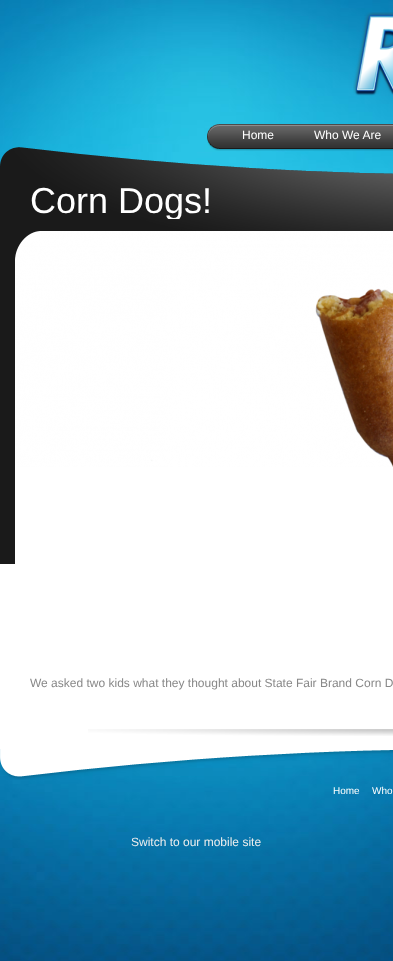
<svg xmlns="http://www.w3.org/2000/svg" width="393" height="961">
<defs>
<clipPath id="clip1"><rect x="30" y="183" width="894" height="36"/></clipPath>
</defs>
<rect width="100%" height="100%" fill="#fff"/>
<image x="0" y="0" width="393" height="961" href="media/1.png"/>
<image x="353" y="12" width="40" height="84" href="media/2.png"/>
<image x="0" y="147" width="393" height="84" href="media/5.png"/>
<image x="207" y="124" width="15" height="27" href="media/3.png"/>
<image x="222" y="124" width="171" height="27" href="media/4.png"/>
<text x="242" y="139" style="font-family:Liberation Sans;font-size:12px;fill:#fff">Home</text>
<text x="314" y="139" style="font-family:Liberation Sans;font-size:12px;fill:#fff">Who We Are</text>
<g clip-path="url(#clip1)">
<text x="30" y="213" style="font-family:Liberation Sans;font-size:36px;fill:#fff">Corn Dogs!</text>
</g>
<rect y="467" width="393" height="282" fill="#fff"/>
<image x="0" y="231" width="15" height="333" href="media/6.png"/>
<image x="15" y="231" width="378" height="236" href="media/7.png"/>
<image x="15" y="231" width="25" height="29" href="media/8.png"/>
<text x="30" y="687" style="font-family:Liberation Sans;font-size:12px;fill:#888">We asked two kids what they thought about State Fair Brand Corn D</text>
<image x="88" y="729" width="305" height="7" href="media/9.png"/>
<image x="0" y="749" width="393" height="31" href="media/10.png"/>
<text x="333" y="794" style="font-family:Liberation Sans;font-size:10px;fill:#fff">Home</text>
<text x="372" y="794" style="font-family:Liberation Sans;font-size:10px;fill:#fff">Who</text>
<text x="131" y="846" style="font-family:Liberation Sans;font-size:12px;fill:#eee">Switch to our mobile site</text>
</svg>
